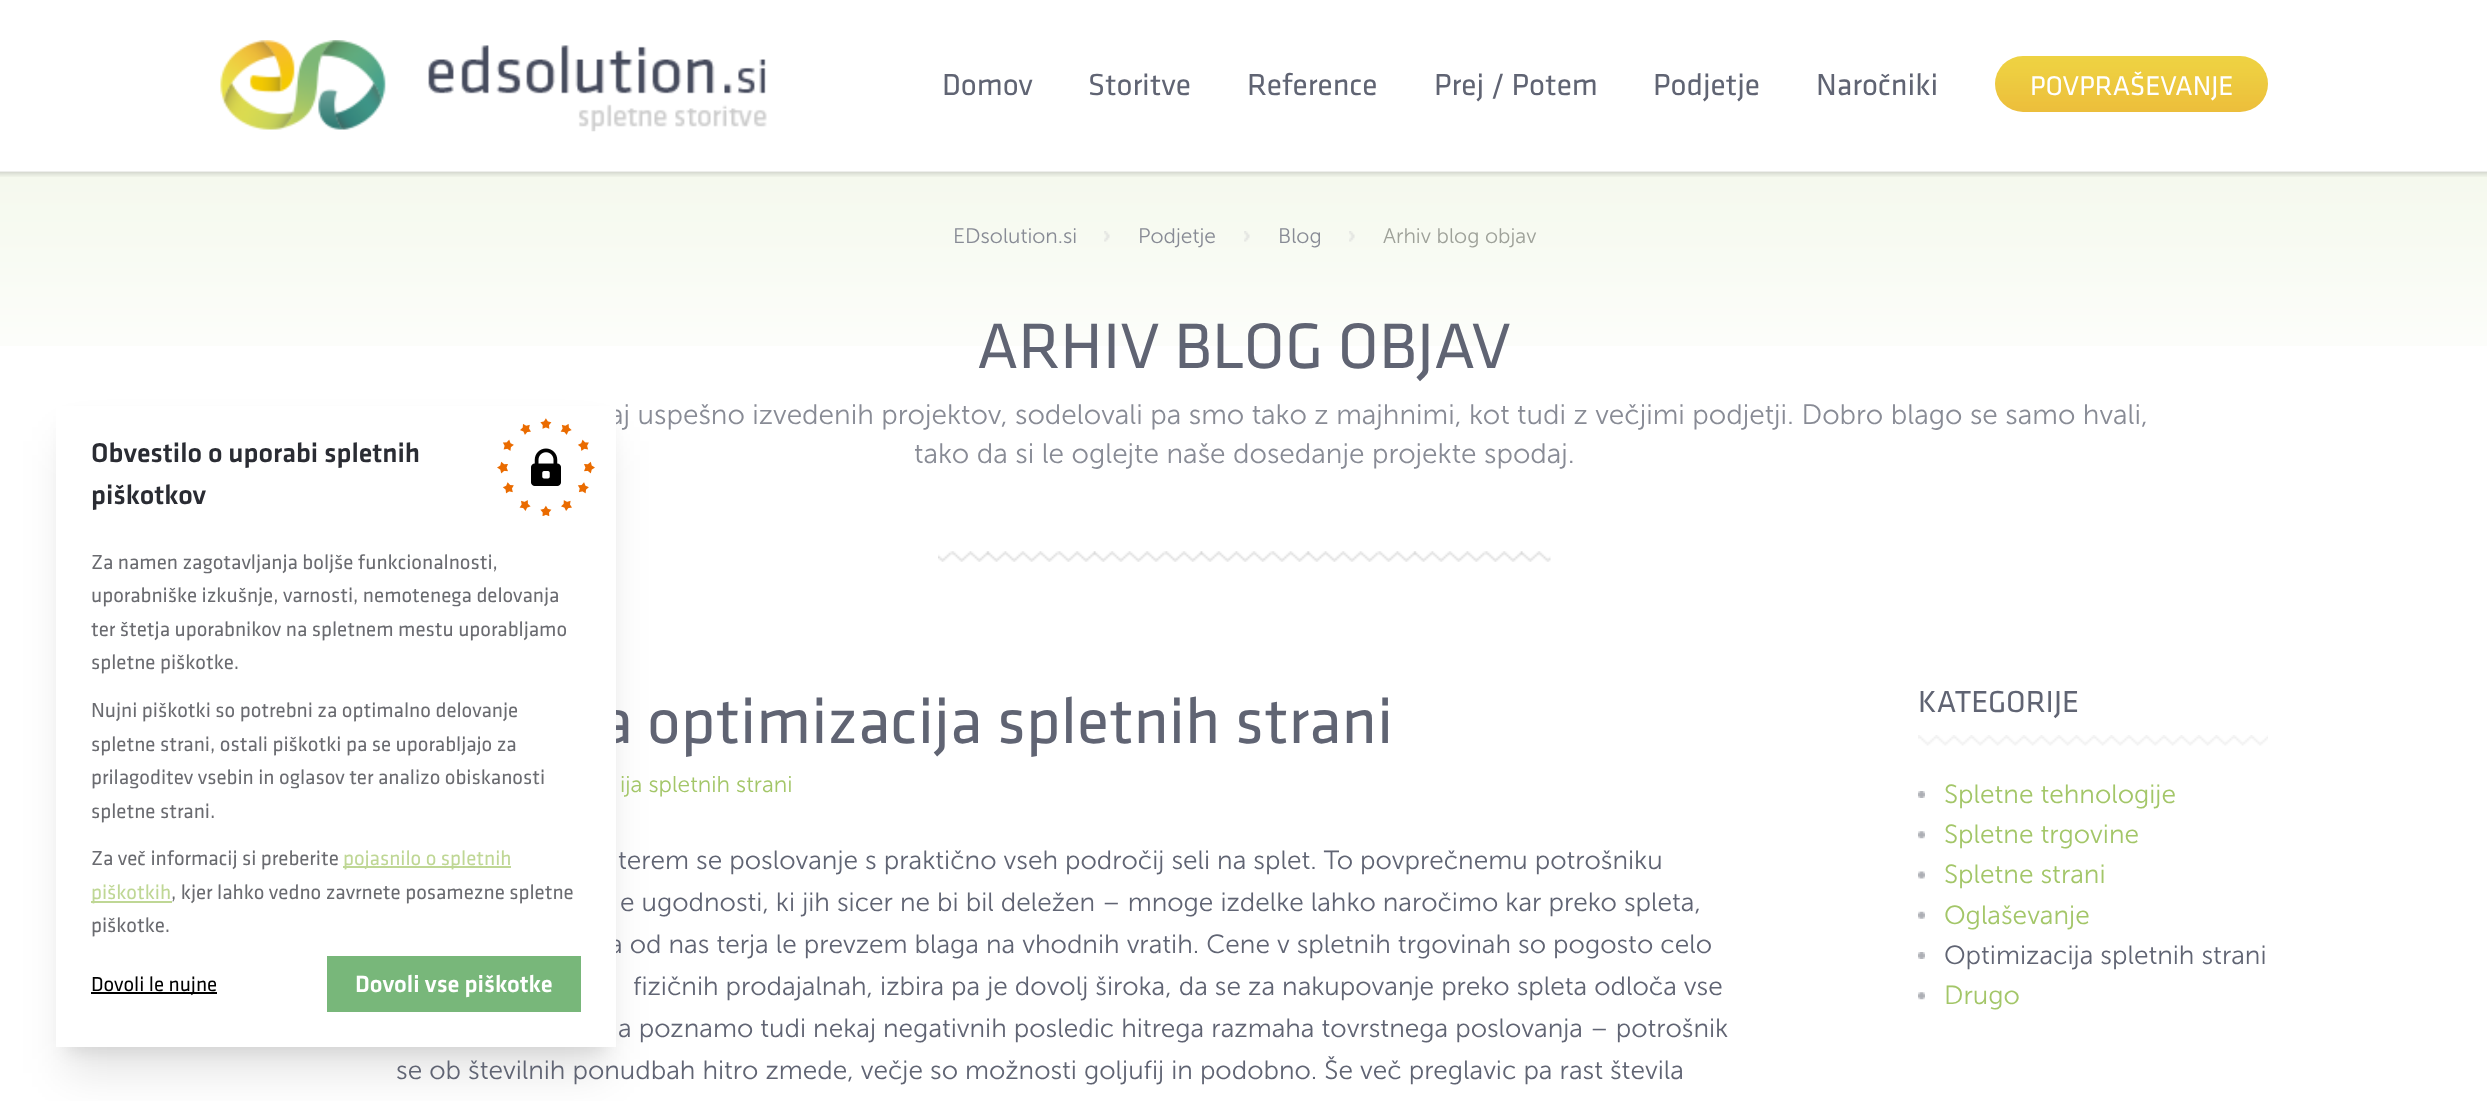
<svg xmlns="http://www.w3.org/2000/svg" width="2487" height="1101">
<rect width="100%" height="100%" fill="#fff"/>
<image x="0" y="171" width="2487" height="175" href="media/5.png"/>
<image x="0" y="171" width="2487" height="6" href="media/1.png"/>
<image x="220" y="40" width="547" height="92" href="media/2.png"/>
<text x="942" y="95" style="font-family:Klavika;font-size:31.5px;fill:#606473">Domov</text>
<text x="1088" y="95" style="font-family:Klavika;font-size:31.5px;fill:#606473">Storitve</text>
<text x="1247" y="95" style="font-family:Klavika;font-size:31.5px;fill:#606473">Reference</text>
<text x="1434" y="95" style="font-family:Klavika;font-size:31.5px;fill:#606473">Prej / Potem</text>
<text x="1653" y="95" style="font-family:Klavika;font-size:31.5px;fill:#606473">Podjetje</text>
<text x="1816" y="95" style="font-family:Klavika;font-size:31.5px;fill:#606473">Naročniki</text>
<image x="1995" y="56" width="273" height="56" href="media/3.png"/>
<text x="2030" y="95" style="font-family:Klavika;font-size:28px;fill:#fff">POVPRAŠEVANJE</text>
<rect x="67" y="422" width="539" height="628" fill="#0000001a" filter="blur(9px)"/>
<rect x="65" y="441" width="542" height="632" fill="#0000001a" filter="blur(22px)"/>
<text x="609" y="424" style="font-family:Museo Sans;font-size:28px;font-weight:300;fill:#888b95">aj uspešno izvedenih projektov, sodelovali pa smo tako z majhnimi, kot tudi z večjimi podjetji. Dobro blago se samo hvali,</text>
<text x="600" y="743" style="font-family:Klavika;font-size:66.5px;fill:#606473">a optimizacija spletnih strani</text>
<text x="609" y="953" style="font-family:Museo Sans;font-size:26.25px;font-weight:300;fill:#606473">a od nas terja le prevzem blaga na vhodnih vratih. Cene v spletnih trgovinah so pogosto celo</text>
<rect x="56" y="406" width="560" height="641" fill="#fff"/>
<text x="91" y="462" style="font-family:Klavika;font-size:28px;font-weight:500;fill:#2a2c33">Obvestilo o uporabi spletnih</text>
<text x="91" y="504" style="font-family:Klavika;font-size:28px;font-weight:500;fill:#2a2c33">piškotkov</text>
<image x="497" y="418" width="98" height="98" href="media/4.png"/>
<text x="91" y="569" style="font-family:Klavika;font-size:21px;fill:#6a6b70">Za namen zagotavljanja boljše funkcionalnosti,</text>
<text x="91" y="602" style="font-family:Klavika;font-size:21px;fill:#6a6b70">uporabniške izkušnje, varnosti, nemotenega delovanja</text>
<text x="91" y="636" style="font-family:Klavika;font-size:21px;fill:#6a6b70">ter štetja uporabnikov na spletnem mestu uporabljamo</text>
<text x="91" y="669" style="font-family:Klavika;font-size:21px;fill:#6a6b70">spletne piškotke.</text>
<text x="91" y="717" style="font-family:Klavika;font-size:21px;fill:#6a6b70">Nujni piškotki so potrebni za optimalno delovanje</text>
<text x="91" y="751" style="font-family:Klavika;font-size:21px;fill:#6a6b70">spletne strani, ostali piškotki pa se uporabljajo za</text>
<text x="91" y="784" style="font-family:Klavika;font-size:21px;fill:#6a6b70">prilagoditev vsebin in oglasov ter analizo obiskanosti</text>
<text x="91" y="818" style="font-family:Klavika;font-size:21px;fill:#6a6b70">spletne strani.</text>
<text x="91" y="865" style="font-family:Klavika;font-size:21px;fill:#6a6b70">Za več informacij si preberite</text>
<rect x="343" y="866" width="168" height="2" fill="#bfd795"/>
<text x="343" y="865" style="font-family:Klavika;font-size:21px;fill:#bfd795">pojasnilo o spletnih</text>
<rect x="91" y="901" width="81" height="2" fill="#bfd795"/>
<text x="91" y="899" style="font-family:Klavika;font-size:21px;fill:#bfd795">piškotkih</text>
<text x="171" y="899" style="font-family:Klavika;font-size:21px;fill:#6a6b70">, kjer lahko vedno zavrnete posamezne spletne</text>
<text x="91" y="932" style="font-family:Klavika;font-size:21px;fill:#6a6b70">piškotke.</text>
<rect x="91" y="992" width="126" height="2" fill="#000"/>
<text x="91" y="991" style="font-family:Klavika;font-size:21px;fill:#000">Dovoli le nujne</text>
<rect x="327" y="956" width="254" height="56" fill="#78b77a"/>
<text x="355" y="992" style="font-family:Klavika;font-size:24.5px;font-weight:500;fill:#fff">Dovoli vse piškotke</text>
<text x="953" y="243" style="font-family:Museo Sans;font-size:21px;font-weight:300;fill:#888b95">EDsolution.si</text>
<image x="1104" y="231" width="6" height="11" href="media/6.png"/>
<text x="1138" y="243" style="font-family:Museo Sans;font-size:21px;font-weight:300;fill:#888b95">Podjetje</text>
<image x="1244" y="231" width="6" height="11" href="media/6.png"/>
<text x="1278" y="243" style="font-family:Museo Sans;font-size:21px;font-weight:300;fill:#888b95">Blog</text>
<image x="1349" y="231" width="6" height="11" href="media/6.png"/>
<text x="1383" y="243" style="font-family:Museo Sans;font-size:21px;font-weight:300;fill:#9ea199">Arhiv blog objav</text>
<image x="938" y="551" width="613" height="11" href="media/7.png"/>
<text x="977" y="368" style="font-family:Klavika;font-size:66.5px;fill:#606473">ARHIV BLOG OBJAV</text>
<text x="914" y="463" style="font-family:Museo Sans;font-size:28px;font-weight:300;fill:#888b95">tako da si le oglejte naše dosedanje projekte spodaj.</text>
<text x="620" y="792" style="font-family:Museo Sans;font-size:22.75px;font-weight:300;fill:#a3c668">ija spletnih strani</text>
<text x="618" y="869" style="font-family:Museo Sans;font-size:26.25px;font-weight:300;fill:#606473">terem se poslovanje s praktično vseh področij seli na splet. To povprečnemu potrošniku</text>
<text x="620" y="911" style="font-family:Museo Sans;font-size:26.25px;font-weight:300;fill:#606473">e ugodnosti, ki jih sicer ne bi bil deležen – mnoge izdelke lahko naročimo kar preko spleta,</text>
<text x="633" y="995" style="font-family:Museo Sans;font-size:26.25px;font-weight:300;fill:#606473">fizičnih prodajalnah, izbira pa je dovolj široka, da se za nakupovanje preko spleta odloča vse</text>
<text x="618" y="1037" style="font-family:Museo Sans;font-size:26.25px;font-weight:300;fill:#606473">a poznamo tudi nekaj negativnih posledic hitrega razmaha tovrstnega poslovanja – potrošnik</text>
<text x="396" y="1079" style="font-family:Museo Sans;font-size:26.25px;font-weight:300;fill:#606473">se ob številnih ponudbah hitro zmede, večje so možnosti goljufij in podobno. Še več preglavic pa rast števila</text>
<image x="1918" y="735" width="350" height="11" href="media/8.png"/>
<text x="1918" y="712" style="font-family:Klavika;font-size:31.5px;fill:#606473">KATEGORIJE</text>
<image x="1918" y="791" width="7" height="7" href="media/9.png"/>
<text x="1944" y="803" style="font-family:Museo Sans;font-size:26.25px;font-weight:300;fill:#a3c668">Spletne tehnologije</text>
<image x="1918" y="831" width="7" height="8" href="media/10.png"/>
<text x="1944" y="843" style="font-family:Museo Sans;font-size:26.25px;font-weight:300;fill:#a3c668">Spletne trgovine</text>
<image x="1918" y="871" width="7" height="8" href="media/11.png"/>
<text x="1944" y="883" style="font-family:Museo Sans;font-size:26.25px;font-weight:300;fill:#a3c668">Spletne strani</text>
<image x="1918" y="911" width="7" height="8" href="media/12.png"/>
<text x="1944" y="924" style="font-family:Museo Sans;font-size:26.25px;font-weight:300;fill:#a3c668">Oglaševanje</text>
<image x="1918" y="952" width="7" height="7" href="media/9.png"/>
<text x="1944" y="964" style="font-family:Museo Sans;font-size:26.25px;font-weight:300;fill:#606473">Optimizacija spletnih strani</text>
<image x="1918" y="992" width="7" height="8" href="media/10.png"/>
<text x="1944" y="1004" style="font-family:Museo Sans;font-size:26.25px;font-weight:300;fill:#a3c668">Drugo</text>
</svg>
